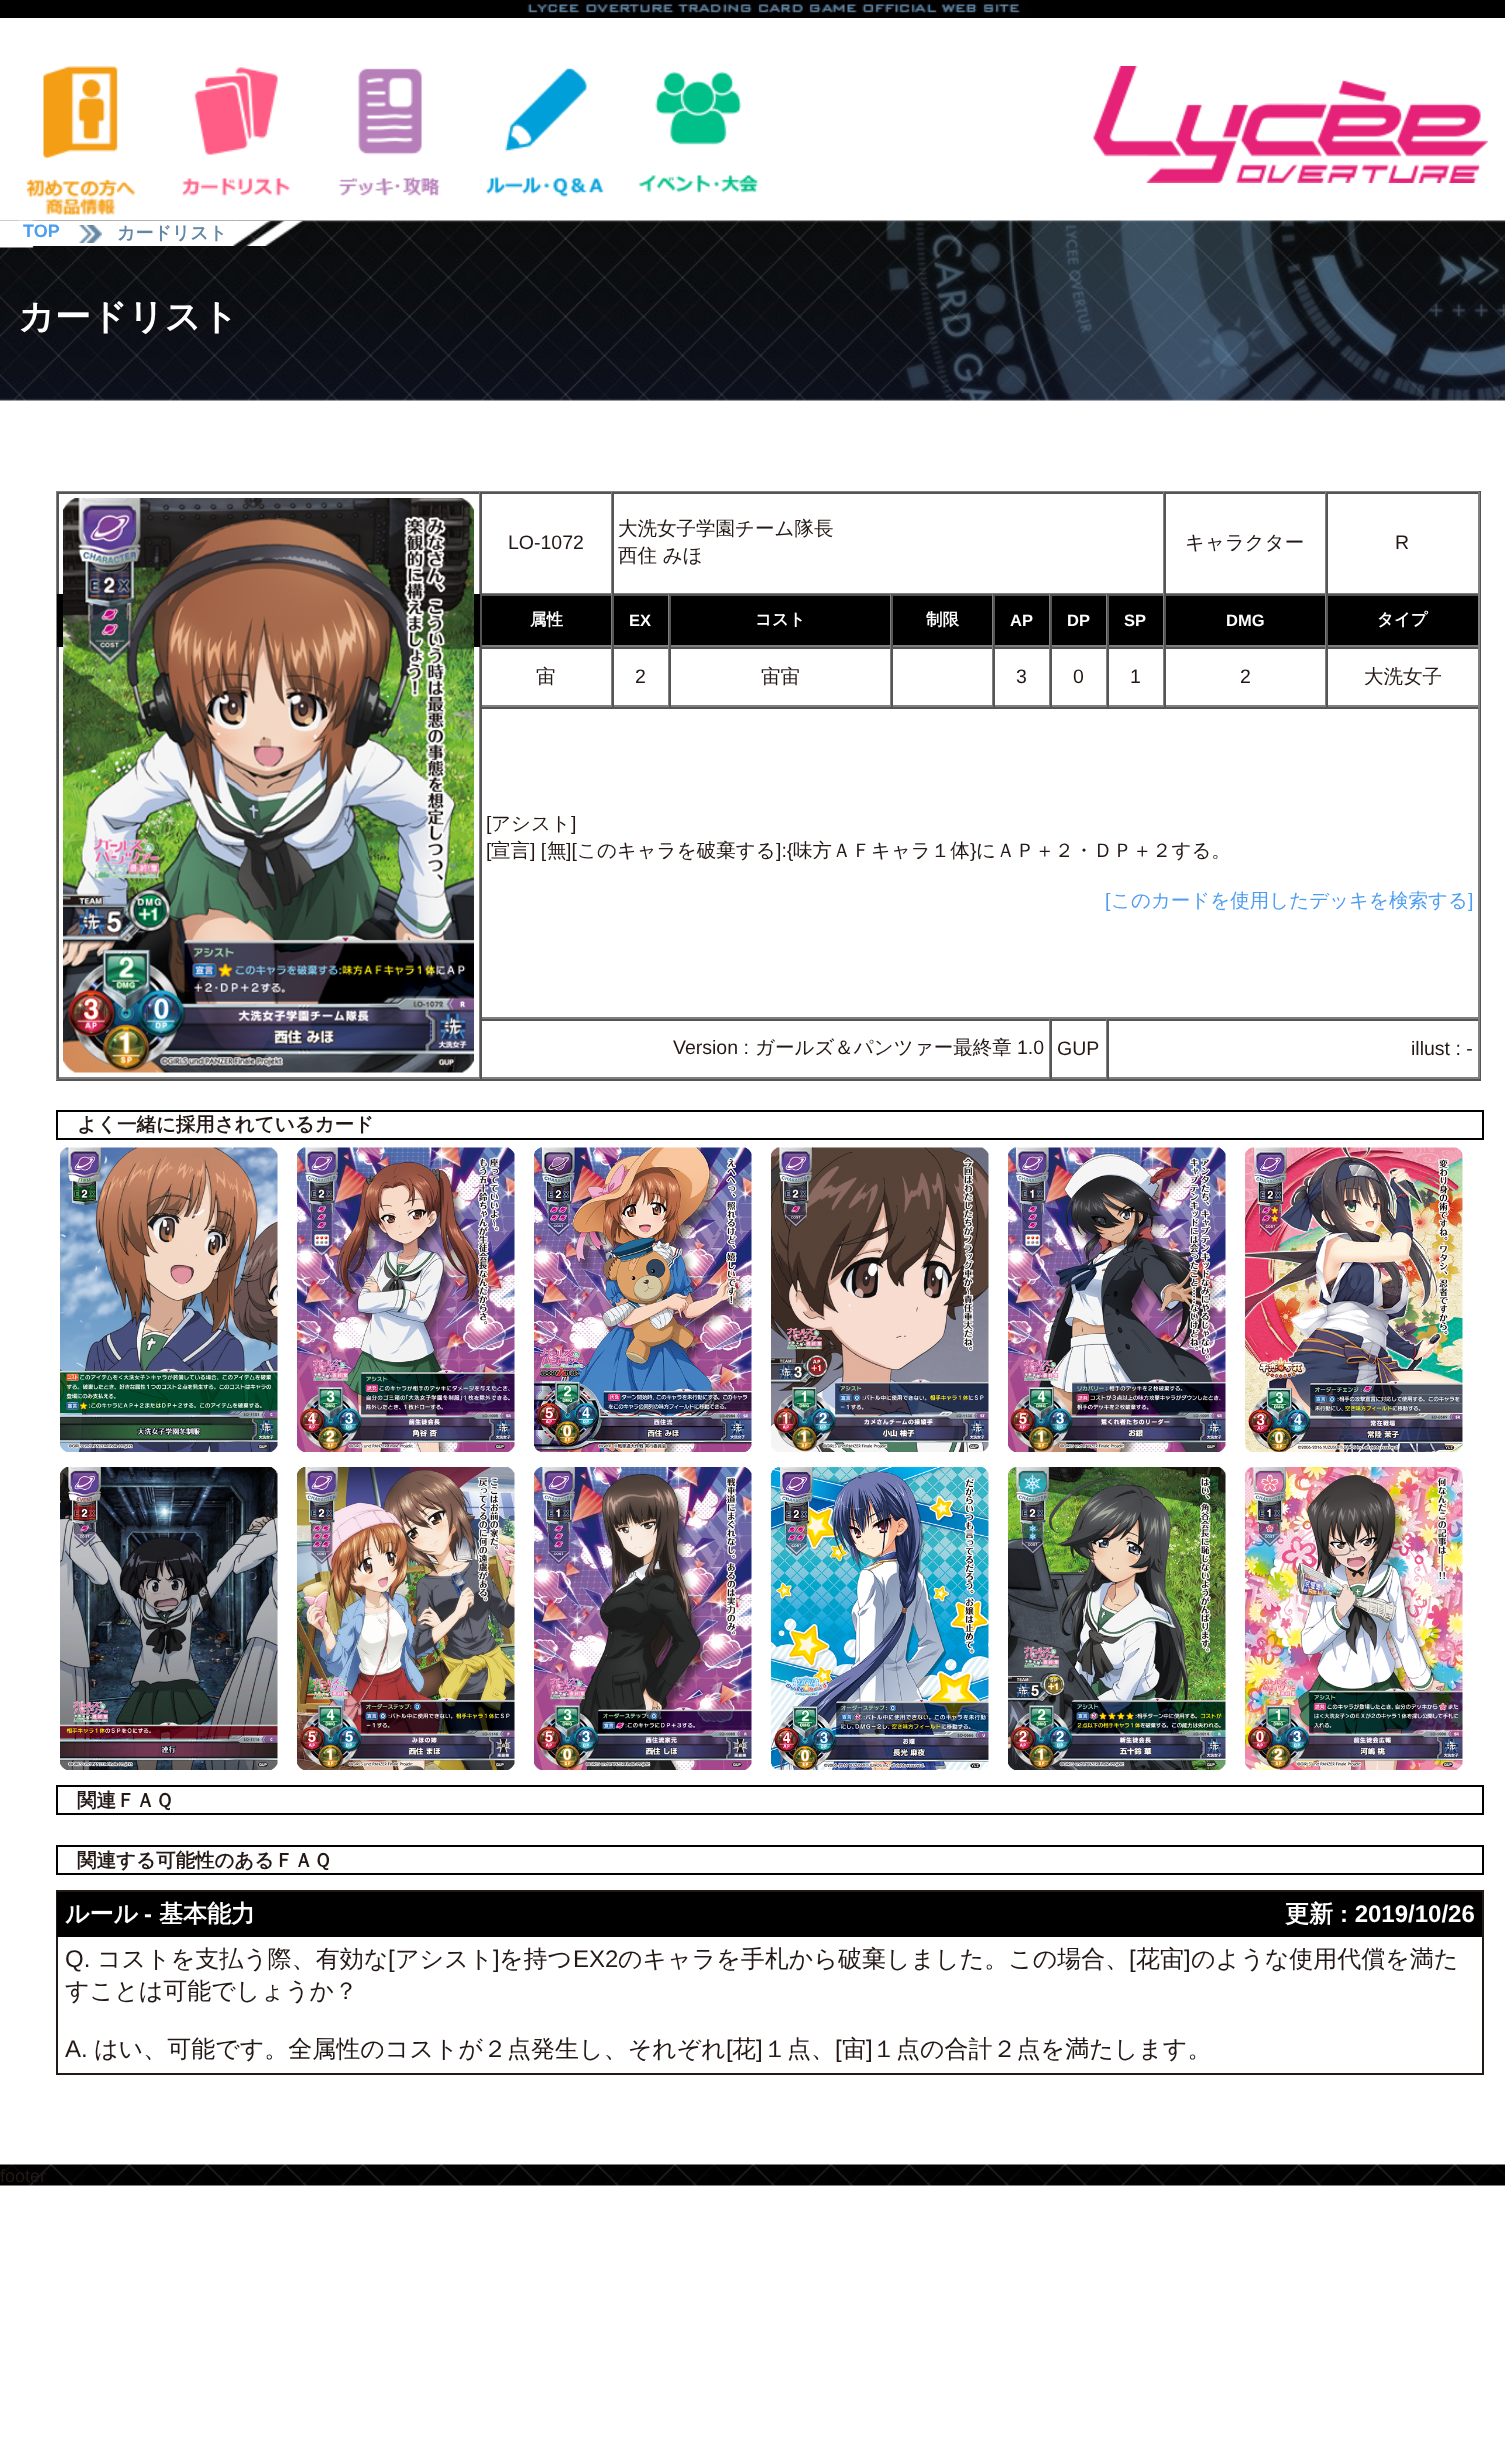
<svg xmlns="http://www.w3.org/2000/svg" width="1505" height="2456">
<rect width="100%" height="100%" fill="#fff"/>
<image x="0" y="0" width="1505" height="18" href="media/1.png"/>
<image x="26" y="66" width="110" height="149" href="media/2.png"/>
<image x="182" y="67" width="108" height="129" href="media/3.png"/>
<image x="338" y="68" width="102" height="128" href="media/4.png"/>
<image x="485" y="67" width="119" height="130" href="media/5.png"/>
<image x="638" y="71" width="120" height="122" href="media/6.png"/>
<image x="1093" y="66" width="395" height="117" href="media/7.png"/>
<image x="0" y="220" width="1505" height="181" href="media/8.png"/>
<image x="0" y="220" width="34" height="28" href="media/9.png"/>
<image x="18" y="220" width="285" height="26" href="media/10.png"/>
<text x="23" y="237" style="font-family:Liberation Sans;font-size:18px;font-weight:bold;fill:#4d9df1">TOP</text>
<image x="79" y="225" width="23" height="18" href="media/11.png"/>
<text x="117" y="239" style="font-family:WenQuanYi Zen Hei;font-size:18px;font-weight:bold;fill:#6386a3">カードリスト</text>
<text x="18" y="329" style="font-family:WenQuanYi Zen Hei;font-size:36px;font-weight:bold;fill:#fff">カードリスト</text>
<rect x="56" y="491" width="1425" height="1" fill="#808080"/>
<rect x="1479" y="491" width="2" height="589" fill="#555"/>
<rect x="56" y="1079" width="1425" height="2" fill="#555"/>
<rect x="56" y="491" width="2" height="589" fill="#808080"/>
<rect x="57" y="492" width="1422" height="2" fill="#555"/>
<rect x="479" y="492" width="1" height="587" fill="#808080"/>
<rect x="57" y="1077" width="423" height="2" fill="#808080"/>
<rect x="57" y="492" width="2" height="587" fill="#555"/>
<rect x="57" y="594" width="1421" height="53" fill="#000"/>
<image x="63" y="498" width="411" height="575" href="media/12.png"/>
<rect x="611" y="492" width="1" height="102" fill="#808080"/>
<rect x="480" y="593" width="132" height="1" fill="#808080"/>
<rect x="480" y="492" width="2" height="102" fill="#555"/>
<text x="508" y="549" style="font-family:Liberation Sans;font-size:19.5px;fill:#231815">LO-1072</text>
<rect x="1163" y="492" width="1" height="102" fill="#808080"/>
<rect x="612" y="593" width="552" height="1" fill="#808080"/>
<rect x="612" y="492" width="2" height="102" fill="#555"/>
<text x="618" y="535" style="font-family:WenQuanYi Zen Hei;font-size:19.5px;font-weight:500;fill:#231815">大洗女子学園チーム隊長</text>
<text x="618" y="562" style="font-family:WenQuanYi Zen Hei;font-size:19.5px;font-weight:500;fill:#231815">西住 みほ</text>
<rect x="1325" y="492" width="1" height="102" fill="#808080"/>
<rect x="1164" y="593" width="162" height="1" fill="#808080"/>
<rect x="1164" y="492" width="2" height="102" fill="#555"/>
<text x="1185" y="549" style="font-family:WenQuanYi Zen Hei;font-size:19.5px;font-weight:500;fill:#231815">キャラクター</text>
<rect x="1478" y="492" width="2" height="102" fill="#808080"/>
<rect x="1326" y="593" width="153" height="1" fill="#808080"/>
<rect x="1326" y="492" width="2" height="102" fill="#555"/>
<text x="1395" y="549" style="font-family:Liberation Sans;font-size:19.5px;fill:#231815">R</text>
<rect x="480" y="594" width="999" height="2" fill="#555"/>
<rect x="611" y="594" width="1" height="53" fill="#808080"/>
<rect x="480" y="645" width="132" height="2" fill="#808080"/>
<rect x="480" y="594" width="2" height="53" fill="#555"/>
<text x="530" y="625" style="font-family:WenQuanYi Zen Hei;font-size:16.5px;font-weight:bold;fill:#fff">属性</text>
<rect x="668" y="594" width="1" height="53" fill="#808080"/>
<rect x="612" y="645" width="57" height="2" fill="#808080"/>
<rect x="612" y="594" width="2" height="53" fill="#555"/>
<text x="629" y="626" style="font-family:Liberation Sans;font-size:16.5px;font-weight:bold;fill:#fff">EX</text>
<rect x="890" y="594" width="1" height="53" fill="#808080"/>
<rect x="669" y="645" width="222" height="2" fill="#808080"/>
<rect x="669" y="594" width="2" height="53" fill="#555"/>
<text x="755" y="625" style="font-family:WenQuanYi Zen Hei;font-size:16.5px;font-weight:bold;fill:#fff">コスト</text>
<rect x="992" y="594" width="1" height="53" fill="#808080"/>
<rect x="891" y="645" width="102" height="2" fill="#808080"/>
<rect x="891" y="594" width="2" height="53" fill="#555"/>
<text x="926" y="625" style="font-family:WenQuanYi Zen Hei;font-size:16.5px;font-weight:bold;fill:#fff">制限</text>
<rect x="1049" y="594" width="1" height="53" fill="#808080"/>
<rect x="993" y="645" width="57" height="2" fill="#808080"/>
<rect x="993" y="594" width="2" height="53" fill="#555"/>
<text x="1010" y="626" style="font-family:Liberation Sans;font-size:16.5px;font-weight:bold;fill:#fff">AP</text>
<rect x="1106" y="594" width="1" height="53" fill="#808080"/>
<rect x="1050" y="645" width="57" height="2" fill="#808080"/>
<rect x="1050" y="594" width="2" height="53" fill="#555"/>
<text x="1067" y="626" style="font-family:Liberation Sans;font-size:16.5px;font-weight:bold;fill:#fff">DP</text>
<rect x="1163" y="594" width="1" height="53" fill="#808080"/>
<rect x="1107" y="645" width="57" height="2" fill="#808080"/>
<rect x="1107" y="594" width="2" height="53" fill="#555"/>
<text x="1124" y="626" style="font-family:Liberation Sans;font-size:16.5px;font-weight:bold;fill:#fff">SP</text>
<rect x="1325" y="594" width="1" height="53" fill="#808080"/>
<rect x="1164" y="645" width="162" height="2" fill="#808080"/>
<rect x="1164" y="594" width="2" height="53" fill="#555"/>
<text x="1226" y="626" style="font-family:Liberation Sans;font-size:16.5px;font-weight:bold;fill:#fff">DMG</text>
<rect x="1478" y="594" width="2" height="53" fill="#808080"/>
<rect x="1326" y="645" width="153" height="2" fill="#808080"/>
<rect x="1326" y="594" width="2" height="53" fill="#555"/>
<text x="1377" y="625" style="font-family:WenQuanYi Zen Hei;font-size:16.5px;font-weight:bold;fill:#fff">タイプ</text>
<rect x="480" y="647" width="999" height="2" fill="#555"/>
<rect x="611" y="647" width="1" height="60" fill="#808080"/>
<rect x="480" y="705" width="132" height="2" fill="#808080"/>
<rect x="480" y="647" width="2" height="60" fill="#555"/>
<text x="536" y="683" style="font-family:WenQuanYi Zen Hei;font-size:19.5px;font-weight:500;fill:#231815">宙</text>
<rect x="668" y="647" width="1" height="60" fill="#808080"/>
<rect x="612" y="705" width="57" height="2" fill="#808080"/>
<rect x="612" y="647" width="2" height="60" fill="#555"/>
<text x="635" y="683" style="font-family:Liberation Sans;font-size:19.5px;fill:#231815">2</text>
<rect x="890" y="647" width="1" height="60" fill="#808080"/>
<rect x="669" y="705" width="222" height="2" fill="#808080"/>
<rect x="669" y="647" width="2" height="60" fill="#555"/>
<text x="761" y="683" style="font-family:WenQuanYi Zen Hei;font-size:19.5px;font-weight:500;fill:#231815">宙宙</text>
<rect x="992" y="647" width="1" height="60" fill="#808080"/>
<rect x="891" y="705" width="102" height="2" fill="#808080"/>
<rect x="891" y="647" width="2" height="60" fill="#555"/>
<rect x="1049" y="647" width="1" height="60" fill="#808080"/>
<rect x="993" y="705" width="57" height="2" fill="#808080"/>
<rect x="993" y="647" width="2" height="60" fill="#555"/>
<text x="1016" y="683" style="font-family:Liberation Sans;font-size:19.5px;fill:#231815">3</text>
<rect x="1106" y="647" width="1" height="60" fill="#808080"/>
<rect x="1050" y="705" width="57" height="2" fill="#808080"/>
<rect x="1050" y="647" width="2" height="60" fill="#555"/>
<text x="1073" y="683" style="font-family:Liberation Sans;font-size:19.5px;fill:#231815">0</text>
<rect x="1163" y="647" width="1" height="60" fill="#808080"/>
<rect x="1107" y="705" width="57" height="2" fill="#808080"/>
<rect x="1107" y="647" width="2" height="60" fill="#555"/>
<text x="1130" y="683" style="font-family:Liberation Sans;font-size:19.5px;fill:#231815">1</text>
<rect x="1325" y="647" width="1" height="60" fill="#808080"/>
<rect x="1164" y="705" width="162" height="2" fill="#808080"/>
<rect x="1164" y="647" width="2" height="60" fill="#555"/>
<text x="1240" y="683" style="font-family:Liberation Sans;font-size:19.5px;fill:#231815">2</text>
<rect x="1478" y="647" width="2" height="60" fill="#808080"/>
<rect x="1326" y="705" width="153" height="2" fill="#808080"/>
<rect x="1326" y="647" width="2" height="60" fill="#555"/>
<text x="1364" y="683" style="font-family:WenQuanYi Zen Hei;font-size:19.5px;font-weight:500;fill:#231815">大洗女子</text>
<rect x="480" y="707" width="999" height="2" fill="#555"/>
<rect x="1478" y="707" width="2" height="312" fill="#808080"/>
<rect x="480" y="1017" width="999" height="2" fill="#808080"/>
<rect x="480" y="707" width="2" height="312" fill="#555"/>
<text x="486" y="830" style="font-family:Liberation Sans;font-size:19.5px;fill:#231815">[</text>
<text x="491" y="830" style="font-family:WenQuanYi Zen Hei;font-size:19.5px;font-weight:500;fill:#231815">アシスト</text>
<text x="571" y="830" style="font-family:Liberation Sans;font-size:19.5px;fill:#231815">]</text>
<text x="486" y="857" style="font-family:Liberation Sans;font-size:19.5px;fill:#231815">[</text>
<text x="491" y="857" style="font-family:WenQuanYi Zen Hei;font-size:19.5px;font-weight:500;fill:#231815">宣言</text>
<text x="530" y="857" style="font-family:Liberation Sans;font-size:19.5px;fill:#231815">] [</text>
<text x="547" y="857" style="font-family:WenQuanYi Zen Hei;font-size:19.5px;font-weight:500;fill:#231815">無</text>
<text x="566" y="857" style="font-family:Liberation Sans;font-size:19.5px;fill:#231815">][</text>
<text x="577" y="857" style="font-family:WenQuanYi Zen Hei;font-size:19.5px;font-weight:500;fill:#231815">このキャラを破棄する</text>
<text x="776" y="857" style="font-family:Liberation Sans;font-size:19.5px;fill:#231815">]:{</text>
<text x="793" y="857" style="font-family:WenQuanYi Zen Hei;font-size:19.5px;font-weight:500;fill:#231815">味方ＡＦキャラ１体</text>
<text x="970" y="857" style="font-family:Liberation Sans;font-size:19.5px;fill:#231815">}</text>
<text x="976" y="857" style="font-family:WenQuanYi Zen Hei;font-size:19.5px;font-weight:500;fill:#231815">にＡＰ＋２・ＤＰ＋２する。</text>
<text x="1105" y="907" style="font-family:Liberation Sans;font-size:19.5px;fill:#4d9df1">[</text>
<text x="1111" y="907" style="font-family:WenQuanYi Zen Hei;font-size:19.5px;font-weight:500;fill:#4d9df1">このカードを使用したデッキを検索する</text>
<text x="1468" y="907" style="font-family:Liberation Sans;font-size:19.5px;fill:#4d9df1">]</text>
<rect x="480" y="1019" width="999" height="2" fill="#555"/>
<rect x="1049" y="1019" width="1" height="60" fill="#808080"/>
<rect x="480" y="1077" width="570" height="2" fill="#808080"/>
<rect x="480" y="1019" width="2" height="60" fill="#555"/>
<text x="673" y="1054" style="font-family:Liberation Sans;font-size:19.5px;fill:#231815">Version :</text>
<text x="755" y="1054" style="font-family:WenQuanYi Zen Hei;font-size:19.5px;font-weight:500;fill:#231815">ガールズ＆パンツァー最終章</text>
<text x="1017" y="1054" style="font-family:Liberation Sans;font-size:19.5px;fill:#231815">1.0</text>
<rect x="1106" y="1019" width="1" height="60" fill="#808080"/>
<rect x="1050" y="1077" width="57" height="2" fill="#808080"/>
<rect x="1050" y="1019" width="2" height="60" fill="#555"/>
<text x="1057" y="1055" style="font-family:Liberation Sans;font-size:19.5px;fill:#231815">GUP</text>
<rect x="1478" y="1019" width="2" height="60" fill="#808080"/>
<rect x="1107" y="1077" width="372" height="2" fill="#808080"/>
<rect x="1107" y="1019" width="2" height="60" fill="#555"/>
<text x="1411" y="1055" style="font-family:Liberation Sans;font-size:19.5px;fill:#231815">illust : -</text>
<rect x="57" y="1111" width="1426" height="28" fill="none" stroke="#000" stroke-width="2"/>
<text x="77" y="1131" style="font-family:WenQuanYi Zen Hei;font-size:19.5px;font-weight:bold;fill:#231815">よく一緒に採用されているカード</text>
<image x="60" y="1147" width="218" height="305" href="media/13.png"/>
<image x="297" y="1147" width="218" height="305" href="media/14.png"/>
<image x="534" y="1147" width="218" height="305" href="media/15.png"/>
<image x="771" y="1147" width="218" height="305" href="media/16.png"/>
<image x="1008" y="1147" width="218" height="305" href="media/17.png"/>
<image x="1245" y="1147" width="218" height="305" href="media/18.png"/>
<image x="60" y="1467" width="218" height="303" href="media/19.png"/>
<image x="297" y="1467" width="218" height="303" href="media/20.png"/>
<image x="534" y="1467" width="218" height="303" href="media/21.png"/>
<image x="771" y="1467" width="218" height="303" href="media/22.png"/>
<image x="1008" y="1467" width="218" height="303" href="media/23.png"/>
<image x="1245" y="1467" width="218" height="303" href="media/24.png"/>
<rect x="57" y="1786" width="1426" height="28" fill="none" stroke="#000" stroke-width="2"/>
<text x="77" y="1807" style="font-family:WenQuanYi Zen Hei;font-size:19.5px;font-weight:bold;fill:#231815">関連ＦＡＱ</text>
<rect x="57" y="1846" width="1426" height="28" fill="none" stroke="#000" stroke-width="2"/>
<text x="77" y="1867" style="font-family:WenQuanYi Zen Hei;font-size:19.5px;font-weight:bold;fill:#231815">関連する可能性のあるＦＡＱ</text>
<rect x="57" y="1891" width="1426" height="183" fill="none" stroke="#231815" stroke-width="2"/>
<rect x="57" y="1892" width="1425" height="45" fill="#000"/>
<text x="65" y="1922" style="font-family:WenQuanYi Zen Hei;font-size:24px;font-weight:bold;fill:#fff">ルール</text>
<text x="144" y="1922" style="font-family:Liberation Sans;font-size:24px;font-weight:bold;fill:#fff">-</text>
<text x="159" y="1922" style="font-family:WenQuanYi Zen Hei;font-size:24px;font-weight:bold;fill:#fff">基本能力</text>
<text x="1285" y="1922" style="font-family:WenQuanYi Zen Hei;font-size:24px;font-weight:bold;fill:#fff">更新</text>
<text x="1340" y="1922" style="font-family:Liberation Sans;font-size:24px;font-weight:bold;fill:#fff">: 2019/10/26</text>
<text x="65" y="1967" style="font-family:Liberation Sans;font-size:24px;fill:#231815">Q.</text>
<text x="97" y="1967" style="font-family:WenQuanYi Zen Hei;font-size:24px;font-weight:500;fill:#231815">コストを支払う際、有効な</text>
<text x="388" y="1967" style="font-family:Liberation Sans;font-size:24px;fill:#231815">[</text>
<text x="395" y="1967" style="font-family:WenQuanYi Zen Hei;font-size:24px;font-weight:500;fill:#231815">アシスト</text>
<text x="493" y="1967" style="font-family:Liberation Sans;font-size:24px;fill:#231815">]</text>
<text x="499" y="1967" style="font-family:WenQuanYi Zen Hei;font-size:24px;font-weight:500;fill:#231815">を持つ</text>
<text x="573" y="1967" style="font-family:Liberation Sans;font-size:24px;fill:#231815">EX2</text>
<text x="618" y="1967" style="font-family:WenQuanYi Zen Hei;font-size:24px;font-weight:500;fill:#231815">のキャラを手札から破棄しました。この場合、</text>
<text x="1129" y="1967" style="font-family:Liberation Sans;font-size:24px;fill:#231815">[</text>
<text x="1136" y="1967" style="font-family:WenQuanYi Zen Hei;font-size:24px;font-weight:500;fill:#231815">花宙</text>
<text x="1184" y="1967" style="font-family:Liberation Sans;font-size:24px;fill:#231815">]</text>
<text x="1191" y="1967" style="font-family:WenQuanYi Zen Hei;font-size:24px;font-weight:500;fill:#231815">のような使用代償を満た</text>
<text x="65" y="1999" style="font-family:WenQuanYi Zen Hei;font-size:24px;font-weight:500;fill:#231815">すことは可能でしょうか？</text>
<text x="65" y="2057" style="font-family:Liberation Sans;font-size:24px;fill:#231815">A.</text>
<text x="94" y="2057" style="font-family:WenQuanYi Zen Hei;font-size:24px;font-weight:500;fill:#231815">はい、可能です。全属性のコストが２点発生し、それぞれ</text>
<text x="726" y="2057" style="font-family:Liberation Sans;font-size:24px;fill:#231815">[</text>
<text x="732" y="2057" style="font-family:WenQuanYi Zen Hei;font-size:24px;font-weight:500;fill:#231815">花</text>
<text x="756" y="2057" style="font-family:Liberation Sans;font-size:24px;fill:#231815">]</text>
<text x="763" y="2057" style="font-family:WenQuanYi Zen Hei;font-size:24px;font-weight:500;fill:#231815">１点、</text>
<text x="835" y="2057" style="font-family:Liberation Sans;font-size:24px;fill:#231815">[</text>
<text x="842" y="2057" style="font-family:WenQuanYi Zen Hei;font-size:24px;font-weight:500;fill:#231815">宙</text>
<text x="866" y="2057" style="font-family:Liberation Sans;font-size:24px;fill:#231815">]</text>
<text x="872" y="2057" style="font-family:WenQuanYi Zen Hei;font-size:24px;font-weight:500;fill:#231815">１点の合計２点を満たします。</text>
<image x="0" y="2164" width="1505" height="22" href="media/25.png"/>
<text x="0" y="2182" style="font-family:Liberation Sans;font-size:18px;fill:#231815">footer</text>
</svg>
